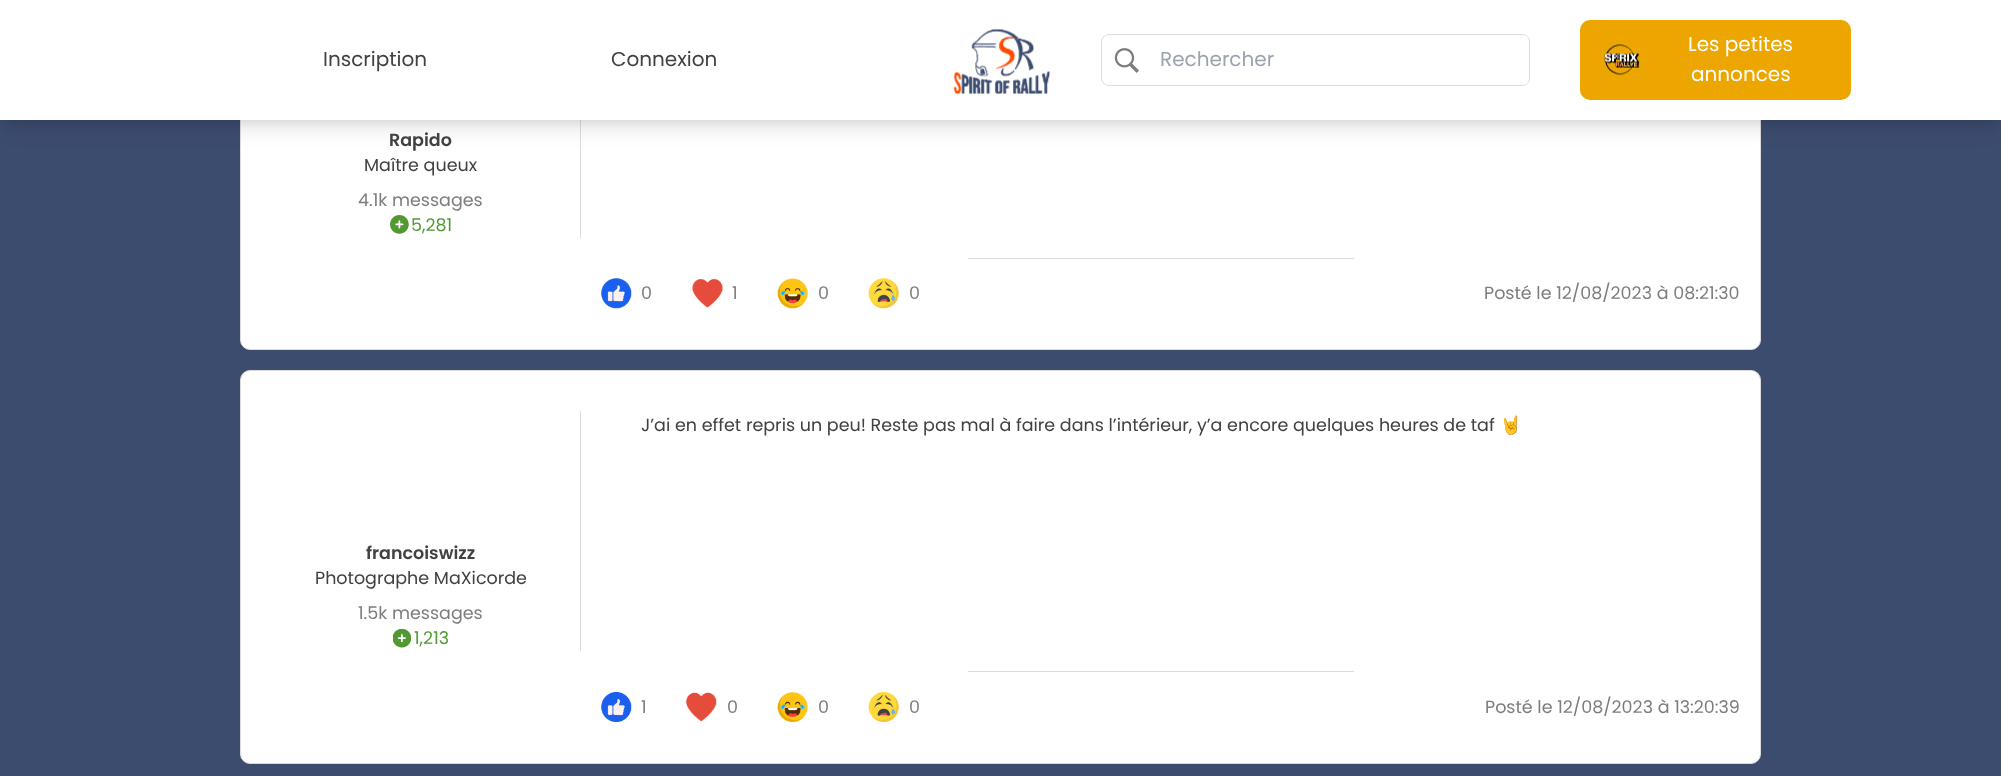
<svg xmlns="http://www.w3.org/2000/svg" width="2001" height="776">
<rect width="100%" height="100%" fill="#3c4c6f"/>
<rect x="240.5" y="-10.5" width="1520" height="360" rx="9.5" fill="#fff" stroke="#dcdcdc"/>
<rect x="580" y="120" width="1" height="118" fill="#dcdcdc"/>
<rect x="5" y="10" width="1991" height="110" fill="#0000001a" filter="blur(4px)"/>
<rect x="4" y="16" width="1994" height="113" fill="#0000001a" filter="blur(9.5px)"/>
<rect width="2001" height="120" fill="#fff"/>
<text x="323" y="66" style="font-family:Poppins;font-size:20px;fill:#414141">Inscription</text>
<text x="611" y="66" style="font-family:Poppins;font-size:20px;fill:#414141">Connexion</text>
<image x="953" y="28" width="98" height="67" href="media/1.png"/>
<rect x="1101.5" y="34.5" width="428" height="51" rx="7.5" fill="none" stroke="#dcdcdc"/>
<image x="1114" y="48" width="25" height="25" href="media/2.png"/>
<text x="1160" y="66" style="font-family:Poppins;font-size:20px;fill:#9ca3af">Rechercher</text>
<rect x="1580" y="20" width="271" height="80" rx="10" fill="#eda600"/>
<image x="1604" y="44" width="36" height="31" href="media/3.png"/>
<text x="1688" y="51" style="font-family:Poppins;font-size:20px;fill:#fff">Les petites</text>
<text x="1691" y="81" style="font-family:Poppins;font-size:20px;fill:#fff">annonces</text>
<text x="389" y="146" style="font-family:Poppins;font-size:17.5px;font-weight:600;fill:#414141">Rapido</text>
<text x="364" y="171" style="font-family:Poppins;font-size:17.5px;fill:#414141">Maître queux</text>
<text x="358" y="206" style="font-family:Poppins;font-size:17.5px;fill:#7d7d7d">4.1k messages</text>
<image x="390" y="215" width="19" height="19" href="media/4.png"/>
<text x="411" y="231" style="font-family:Poppins;font-size:17.5px;fill:#529933">5,281</text>
<rect x="968" y="258" width="386" height="1" fill="#dcdcdc"/>
<image x="601" y="278" width="31" height="31" href="media/5.png"/>
<text x="641" y="299" style="font-family:Poppins;font-size:17.5px;fill:#7d7d7d">0</text>
<image x="692" y="279" width="31" height="29" href="media/6.png"/>
<text x="732" y="299" style="font-family:Poppins;font-size:17.5px;fill:#7d7d7d">1</text>
<image x="777" y="278" width="31" height="31" href="media/7.png"/>
<text x="818" y="299" style="font-family:Poppins;font-size:17.5px;fill:#7d7d7d">0</text>
<image x="868" y="278" width="31" height="31" href="media/8.png"/>
<text x="909" y="299" style="font-family:Poppins;font-size:17.5px;fill:#7d7d7d">0</text>
<text x="1484" y="299" style="font-family:Poppins;font-size:17.5px;fill:#7d7d7d">Posté le 12/08/2023 à 08:21:30</text>
<rect x="240.5" y="370.5" width="1520" height="393" rx="9.5" fill="#fff" stroke="#dcdcdc"/>
<text x="641" y="431" style="font-family:Poppins;font-size:17.5px;fill:#414141">J’ai en effet repris un peu! Reste pas mal à faire dans l’intérieur, y’a encore quelques heures de taf</text>
<text x="1500" y="431" style="font-family:Noto Color Emoji;font-size:17.5px;fill:#414141">🤘</text>
<rect x="580" y="411" width="1" height="240" fill="#dcdcdc"/>
<text x="366" y="559" style="font-family:Poppins;font-size:17.5px;font-weight:600;fill:#414141">francoiswizz</text>
<text x="315" y="584" style="font-family:Poppins;font-size:17.5px;fill:#414141">Photographe MaXicorde</text>
<text x="358" y="619" style="font-family:Poppins;font-size:17.5px;fill:#7d7d7d">1.5k messages</text>
<image x="393" y="629" width="18" height="19" href="media/9.png"/>
<text x="414" y="644" style="font-family:Poppins;font-size:17.5px;fill:#529933">1,213</text>
<rect x="968" y="671" width="386" height="1" fill="#dcdcdc"/>
<image x="601" y="692" width="31" height="30" href="media/10.png"/>
<text x="641" y="713" style="font-family:Poppins;font-size:17.5px;fill:#7d7d7d">1</text>
<image x="686" y="692" width="31" height="30" href="media/11.png"/>
<text x="727" y="713" style="font-family:Poppins;font-size:17.5px;fill:#7d7d7d">0</text>
<image x="777" y="692" width="31" height="30" href="media/12.png"/>
<text x="818" y="713" style="font-family:Poppins;font-size:17.5px;fill:#7d7d7d">0</text>
<image x="868" y="692" width="31" height="30" href="media/13.png"/>
<text x="909" y="713" style="font-family:Poppins;font-size:17.5px;fill:#7d7d7d">0</text>
<text x="1485" y="713" style="font-family:Poppins;font-size:17.5px;fill:#7d7d7d">Posté le 12/08/2023 à 13:20:39</text>
</svg>
